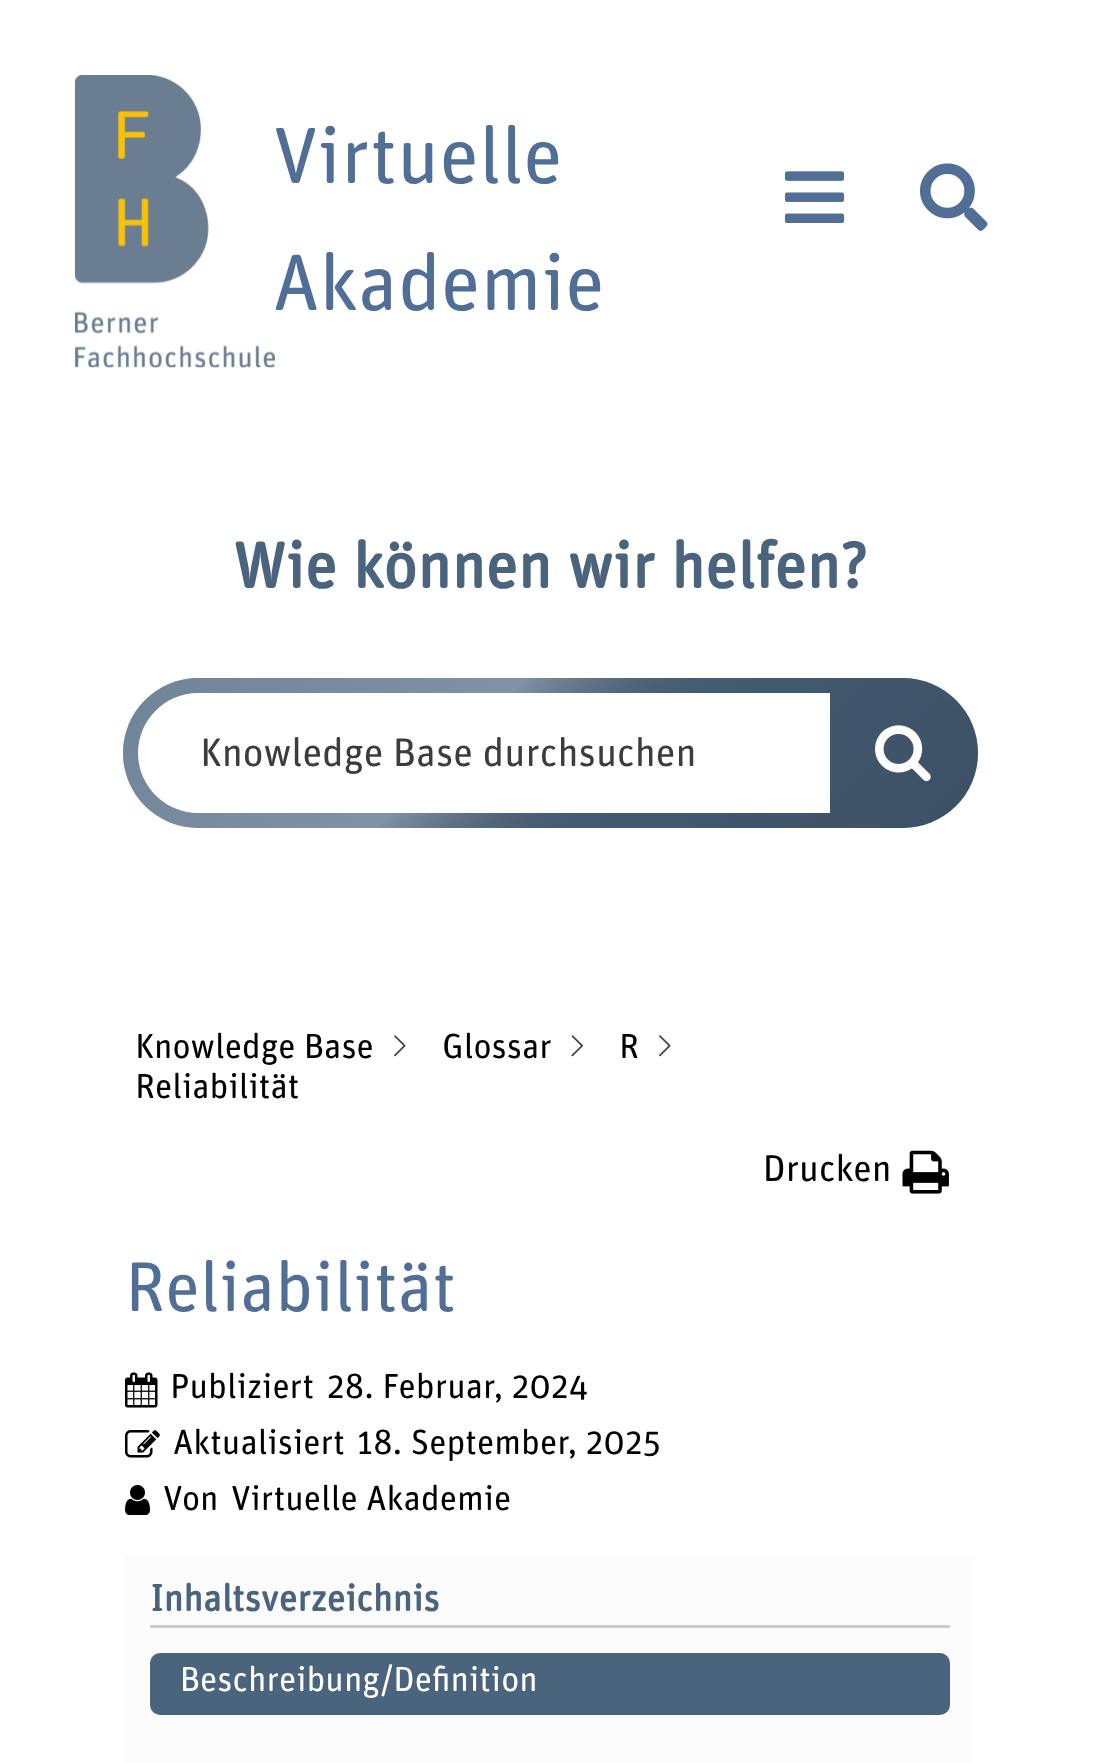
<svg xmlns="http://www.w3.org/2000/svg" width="1100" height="1763">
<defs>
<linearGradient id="g1" gradientUnits="userSpaceOnUse" x1="299" y1="501" x2="801" y2="1004"><stop offset="0" stop-color="#fff" stop-opacity="0.2"/><stop offset="0.4" stop-color="#fff" stop-opacity="0.3"/><stop offset="0.6" stop-color="#000" stop-opacity="0.1"/><stop offset="1" stop-color="#000" stop-opacity="0.2"/></linearGradient>
</defs>
<rect width="100%" height="100%" fill="#fff"/>
<image x="75" y="75" width="200" height="293" href="media/1.png"/>
<text x="273" y="183" style="font-family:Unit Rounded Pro;font-size:80px;fill:#506e96">Virtuelle</text>
<text x="273" y="310" style="font-family:Unit Rounded Pro;font-size:80px;fill:#506e96">Akademie</text>
<image x="785" y="171" width="60" height="52" href="media/2.png"/>
<image x="920" y="163" width="68" height="68" href="media/3.png"/>
<text x="233" y="588" style="font-family:Unit Rounded Pro;font-size:65px;font-weight:bold;fill:#4b647d">Wie können wir helfen?</text>
<rect x="123" y="678" width="855" height="150" rx="75" fill="#4b647d"/>
<rect x="123" y="678" width="855" height="150" rx="75" fill="url(#g1)"/>
<path d="M198 693h632v120h-632c-33 0-60-27-60-60c0-33 27-60 60-60z" fill="#fff"/>
<text x="200" y="766" style="font-family:Unit Rounded Pro;font-size:40px;fill:#3c3c3c">Knowledge Base durchsuchen</text>
<image x="875" y="725" width="56" height="57" href="media/4.png"/>
<text x="135" y="1058" style="font-family:Unit Rounded Pro;font-size:35px;fill:#000">Knowledge Base</text>
<image x="394" y="1035" width="12" height="22" href="media/5.png"/>
<text x="442" y="1058" style="font-family:Unit Rounded Pro;font-size:35px;fill:#000">Glossar</text>
<image x="571" y="1035" width="12" height="22" href="media/6.png"/>
<text x="619" y="1058" style="font-family:Unit Rounded Pro;font-size:35px;fill:#000">R</text>
<image x="659" y="1035" width="12" height="22" href="media/5.png"/>
<text x="135" y="1098" style="font-family:Unit Rounded Pro;font-size:35px;fill:#000">Reliabilität</text>
<text x="763" y="1181" style="font-family:Unit Rounded Pro;font-size:37.5px;fill:#000">Drucken</text>
<image x="902" y="1150" width="47" height="44" href="media/7.png"/>
<text x="125" y="1311" style="font-family:Unit Rounded Pro;font-size:70.5px;fill:#506e96">Reliabilität</text>
<image x="125" y="1372" width="33" height="36" href="media/8.png"/>
<text x="170" y="1398" style="font-family:Unit Rounded Pro;font-size:35px;fill:#000">Publiziert</text>
<text x="327" y="1398" style="font-family:Unit Rounded Pro;font-size:35px;fill:#000">28. Februar, 2024</text>
<image x="125" y="1430" width="35" height="28" href="media/9.png"/>
<text x="173" y="1454" style="font-family:Unit Rounded Pro;font-size:35px;fill:#000">Aktualisiert</text>
<text x="357" y="1454" style="font-family:Unit Rounded Pro;font-size:35px;fill:#000">18. September, 2025</text>
<image x="125" y="1485" width="25" height="30" href="media/10.png"/>
<text x="163" y="1510" style="font-family:Unit Rounded Pro;font-size:35px;fill:#000">Von</text>
<text x="231" y="1510" style="font-family:Unit Rounded Pro;font-size:35px;fill:#000">Virtuelle Akademie</text>
<rect x="125" y="1555" width="850" height="208" fill="#fcfcfc"/>
<rect x="150" y="1625" width="800" height="3" fill="#ccc"/>
<text x="150" y="1611" style="font-family:Unit Rounded Pro;font-size:37.5px;font-weight:bold;fill:#4b647d">Inhaltsverzeichnis</text>
<rect x="150" y="1653" width="800" height="62" rx="10" fill="#4b647d"/>
<text x="180" y="1691" style="font-family:Unit Rounded Pro;font-size:35px;fill:#fff">Beschreibung/Definition</text>
</svg>
